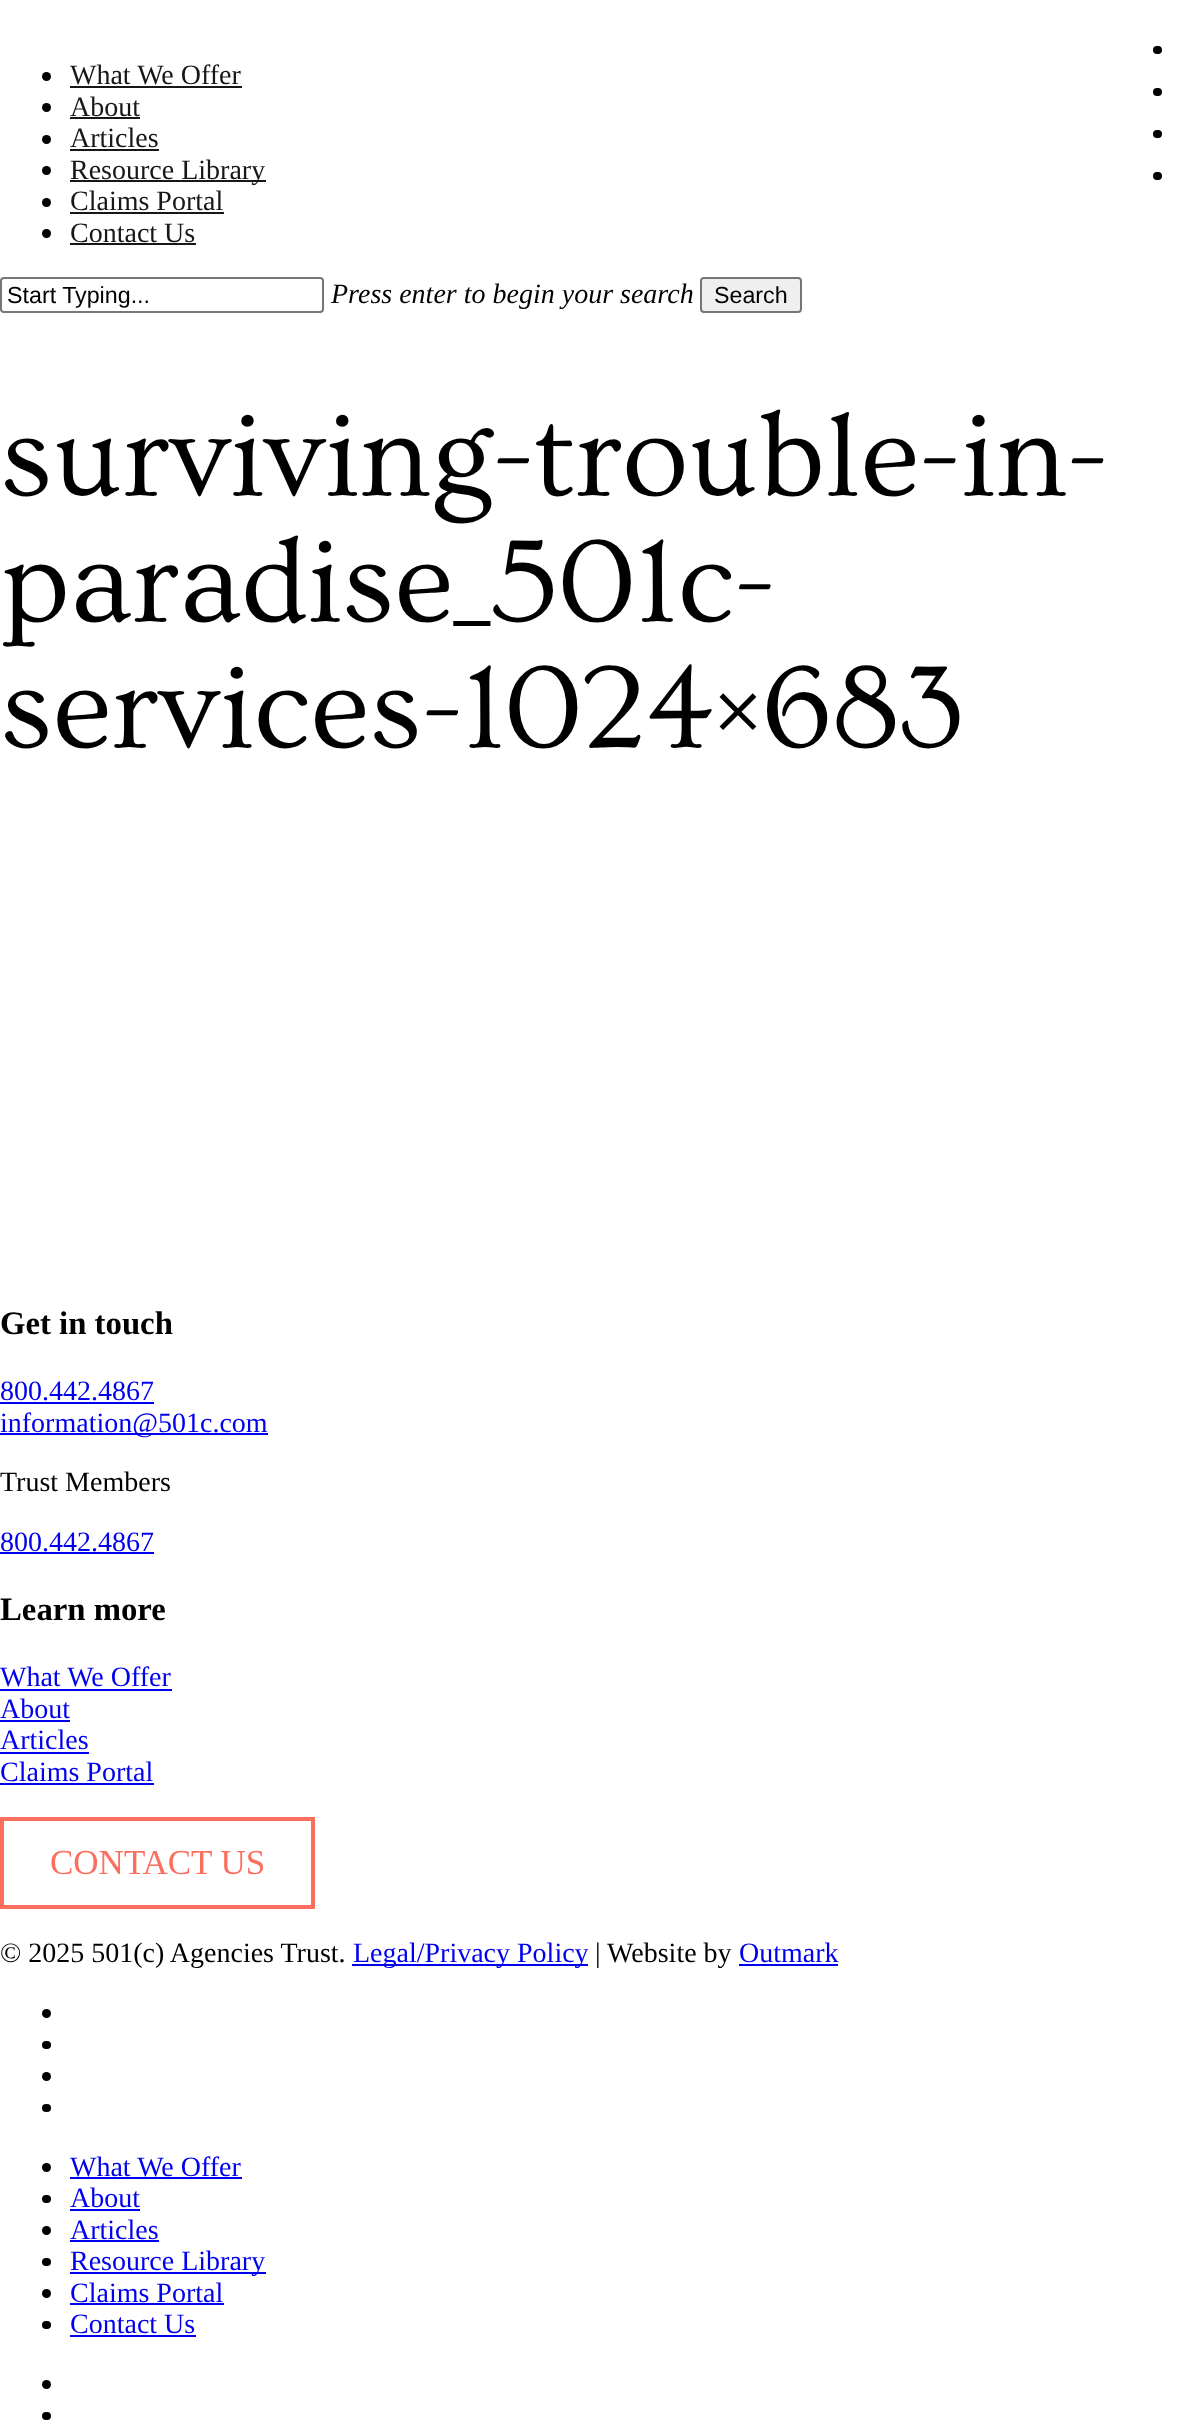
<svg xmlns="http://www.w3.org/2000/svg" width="1180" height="2425">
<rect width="100%" height="100%" fill="#fff"/>
<circle cx="46.5" cy="76.5" r="4.5" fill="#000"/>
<text x="70" y="84" style="font-family:Liberation Serif;font-size:28px;fill:#171717">What We Offer</text>
<rect x="70" y="86" width="172" height="2" fill="#171717"/>
<circle cx="46.5" cy="107.5" r="4.5" fill="#000"/>
<text x="70" y="116" style="font-family:Liberation Serif;font-size:28px;fill:#171717">About</text>
<rect x="70" y="117" width="70" height="2" fill="#171717"/>
<circle cx="46.5" cy="139.5" r="4.5" fill="#000"/>
<text x="70" y="147" style="font-family:Liberation Serif;font-size:28px;fill:#171717">Articles</text>
<rect x="70" y="149" width="89" height="2" fill="#171717"/>
<circle cx="46.5" cy="170.5" r="4.5" fill="#000"/>
<rect x="70" y="180" width="196" height="2" fill="#171717"/>
<text x="70" y="179" style="font-family:Liberation Serif;font-size:28px;fill:#171717">Resource Library</text>
<circle cx="46.5" cy="202.5" r="4.5" fill="#000"/>
<text x="70" y="210" style="font-family:Liberation Serif;font-size:28px;fill:#171717">Claims Portal</text>
<rect x="70" y="212" width="154" height="2" fill="#171717"/>
<circle cx="46.5" cy="233.5" r="4.5" fill="#000"/>
<text x="70" y="242" style="font-family:Liberation Serif;font-size:28px;fill:#171717">Contact Us</text>
<rect x="70" y="243" width="126" height="2" fill="#171717"/>
<rect x="1153" y="46" width="9" height="8" rx="4" fill="#000"/>
<rect x="1153" y="88" width="9" height="8" rx="4" fill="#000"/>
<rect x="1153" y="130" width="9" height="8" rx="4" fill="#000"/>
<rect x="1153" y="172" width="9" height="8" rx="4" fill="#000"/>
<rect x="1" y="278" width="322" height="34" rx="3" fill="none" stroke="#767676" stroke-width="2"/>
<text x="7" y="303" style="font-family:Liberation Sans;font-size:23.25px;fill:#000">Start Typing...</text>
<text x="331" y="303" style="font-family:Liberation Serif;font-size:28px;font-style:italic;fill:#000">Press enter to begin your search</text>
<rect x="701" y="278" width="100" height="34" rx="3" fill="#efefef" stroke="#767676" stroke-width="2"/>
<text x="714" y="303" style="font-family:Liberation Sans;font-size:23.25px;fill:#000">Search</text>
<text x="0" y="495" style="font-family:Ovo;font-size:122.5px;fill:#000">surviving-trouble-in-</text>
<text x="0" y="621" style="font-family:Ovo;font-size:122.5px;fill:#000">paradise_501c-</text>
<text x="0" y="747" style="font-family:Ovo;font-size:122.5px;fill:#000">services-1024×683</text>
<text x="0" y="1334" style="font-family:Liberation Serif;font-size:32.75px;font-weight:bold;fill:#000">Get in touch</text>
<text x="0" y="1400" style="font-family:Liberation Serif;font-size:28px;fill:#00e">800.442.4867</text>
<rect y="1402" width="154" height="2" fill="#00e"/>
<rect y="1433" width="268" height="2" fill="#00e"/>
<text x="0" y="1432" style="font-family:Liberation Serif;font-size:28px;fill:#00e">information@501c.com</text>
<text x="0" y="1491" style="font-family:Liberation Serif;font-size:28px;fill:#000">Trust Members</text>
<text x="0" y="1551" style="font-family:Liberation Serif;font-size:28px;fill:#00e">800.442.4867</text>
<rect y="1552" width="154" height="2" fill="#00e"/>
<text x="0" y="1620" style="font-family:Liberation Serif;font-size:32.75px;font-weight:bold;fill:#000">Learn more</text>
<text x="0" y="1686" style="font-family:Liberation Serif;font-size:28px;fill:#00e">What We Offer</text>
<rect y="1689" width="172" height="2" fill="#00e"/>
<text x="0" y="1718" style="font-family:Liberation Serif;font-size:28px;fill:#00e">About</text>
<rect y="1720" width="70" height="2" fill="#00e"/>
<text x="0" y="1749" style="font-family:Liberation Serif;font-size:28px;fill:#00e">Articles</text>
<rect y="1752" width="89" height="2" fill="#00e"/>
<text x="0" y="1781" style="font-family:Liberation Serif;font-size:28px;fill:#00e">Claims Portal</text>
<rect y="1783" width="154" height="2" fill="#00e"/>
<rect x="2" y="1819" width="311" height="88" fill="none" stroke="#fc6f5f" stroke-width="4"/>
<text x="50" y="1874" style="font-family:Liberation Serif;font-size:35px;fill:#fc6f5f">CONTACT US</text>
<text x="0" y="1962" style="font-family:Liberation Serif;font-size:28px;fill:#000">© 2025 501(c) Agencies Trust.</text>
<rect x="352" y="1964" width="236" height="2" fill="#00e"/>
<text x="353" y="1962" style="font-family:Liberation Serif;font-size:28px;fill:#00e">Legal/Privacy Policy</text>
<text x="595" y="1962" style="font-family:Liberation Serif;font-size:28px;fill:#000">| Website by</text>
<text x="739" y="1962" style="font-family:Liberation Serif;font-size:28px;fill:#00e">Outmark</text>
<rect x="739" y="1964" width="99" height="2" fill="#00e"/>
<circle cx="46.5" cy="2013.5" r="4.5" fill="#000"/>
<rect x="42" y="2041" width="9" height="8" rx="4" fill="#000"/>
<circle cx="46.5" cy="2076.5" r="4.5" fill="#000"/>
<rect x="42" y="2104" width="9" height="8" rx="4" fill="#000"/>
<circle cx="46.5" cy="2167.5" r="4.5" fill="#000"/>
<text x="70" y="2176" style="font-family:Liberation Serif;font-size:28px;fill:#00e">What We Offer</text>
<rect x="70" y="2177" width="172" height="2" fill="#00e"/>
<rect x="42" y="2195" width="9" height="8" rx="4" fill="#000"/>
<text x="70" y="2207" style="font-family:Liberation Serif;font-size:28px;fill:#00e">About</text>
<rect x="70" y="2209" width="70" height="2" fill="#00e"/>
<circle cx="46.5" cy="2230.5" r="4.5" fill="#000"/>
<text x="70" y="2239" style="font-family:Liberation Serif;font-size:28px;fill:#00e">Articles</text>
<rect x="70" y="2240" width="89" height="2" fill="#00e"/>
<rect x="42" y="2258" width="9" height="8" rx="4" fill="#000"/>
<rect x="70" y="2272" width="196" height="2" fill="#00e"/>
<text x="70" y="2270" style="font-family:Liberation Serif;font-size:28px;fill:#00e">Resource Library</text>
<circle cx="46.5" cy="2293.5" r="4.5" fill="#000"/>
<text x="70" y="2302" style="font-family:Liberation Serif;font-size:28px;fill:#00e">Claims Portal</text>
<rect x="70" y="2303" width="154" height="2" fill="#00e"/>
<rect x="42" y="2321" width="9" height="8" rx="4" fill="#000"/>
<text x="70" y="2333" style="font-family:Liberation Serif;font-size:28px;fill:#00e">Contact Us</text>
<rect x="70" y="2335" width="126" height="2" fill="#00e"/>
<circle cx="46.5" cy="2384.5" r="4.5" fill="#000"/>
<rect x="42" y="2412" width="9" height="8" rx="4" fill="#000"/>
</svg>
